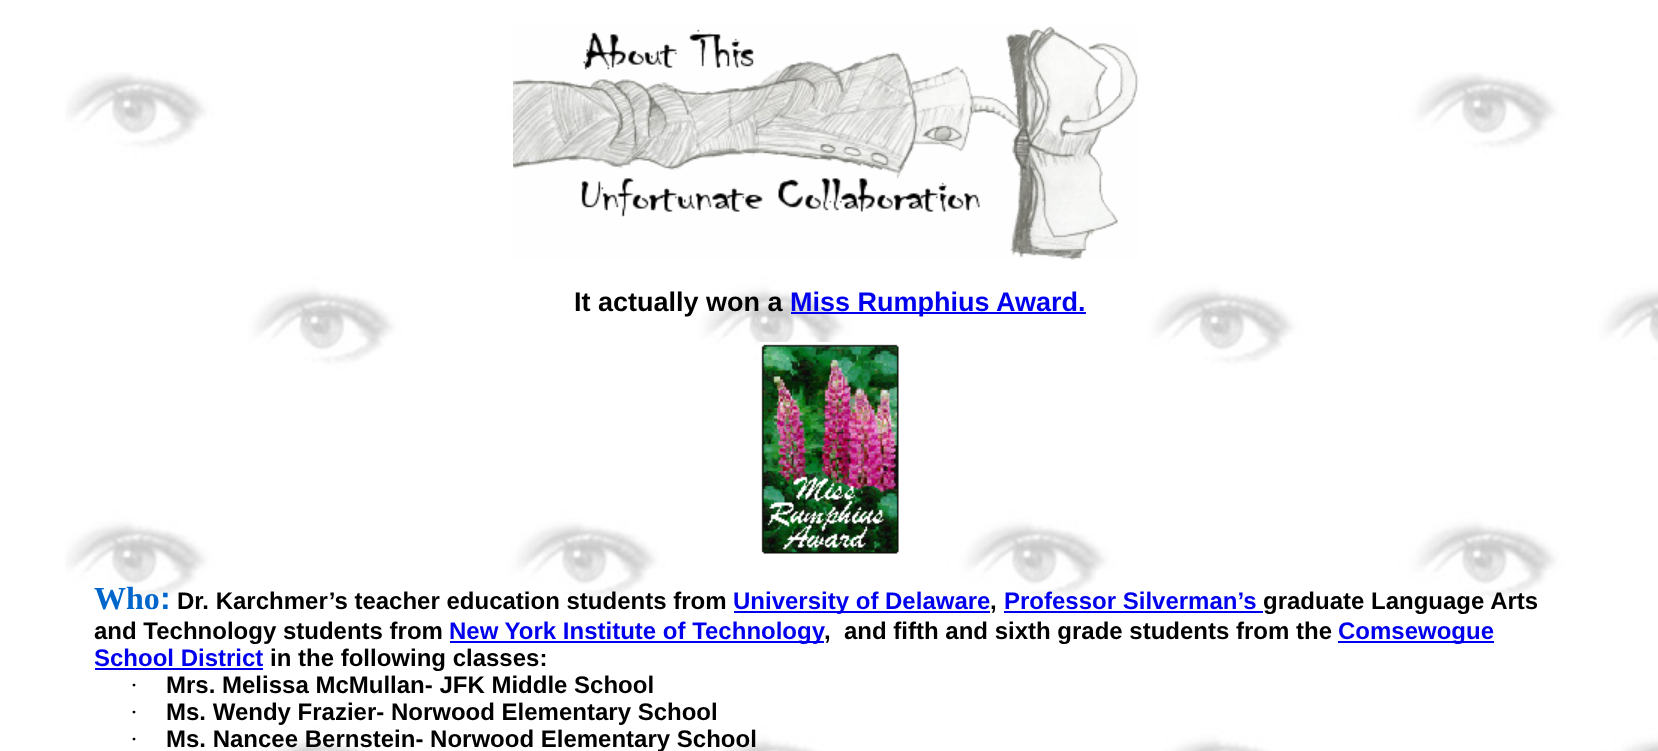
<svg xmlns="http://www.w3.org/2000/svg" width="1658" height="751">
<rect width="100%" height="100%" fill="#fff"/>
<image x="65" y="72" width="1593" height="679" href="media/1.png"/>
<image x="513" y="26" width="626" height="234" href="media/2.png"/>
<text x="574" y="311" style="font-family:Liberation Sans;font-size:27px;font-weight:bold;fill:#000">It actually won a</text>
<rect x="791" y="312" width="295" height="2" fill="#00e"/>
<text x="790" y="311" style="font-family:Liberation Sans;font-size:27px;font-weight:bold;fill:#00e">Miss Rumphius Award.</text>
<image x="759" y="342" width="140" height="212" href="media/3.png"/>
<text x="94" y="609" style="font-family:Liberation Serif;font-size:32px;font-weight:bold;fill:#06c">Who</text>
<text x="160" y="609" style="font-family:Liberation Sans;font-size:32px;font-weight:bold;fill:#06c">:</text>
<text x="177" y="609" style="font-family:Liberation Sans;font-size:24px;font-weight:bold;fill:#000">Dr. Karchmer’s teacher education students from</text>
<rect x="734" y="611" width="256" height="2" fill="#00e"/>
<text x="733" y="609" style="font-family:Liberation Sans;font-size:24px;font-weight:bold;fill:#00e">University of Delaware</text>
<text x="990" y="609" style="font-family:Liberation Sans;font-size:24px;font-weight:bold;fill:#000">,</text>
<rect x="1004" y="611" width="259" height="2" fill="#00e"/>
<text x="1004" y="609" style="font-family:Liberation Sans;font-size:24px;font-weight:bold;fill:#00e">Professor Silverman’s</text>
<text x="1263" y="609" style="font-family:Liberation Sans;font-size:24px;font-weight:bold;fill:#000">graduate Language Arts</text>
<text x="94" y="639" style="font-family:Liberation Sans;font-size:24px;font-weight:bold;fill:#000">and Technology students from</text>
<rect x="450" y="641" width="374" height="2" fill="#00e"/>
<text x="449" y="639" style="font-family:Liberation Sans;font-size:24px;font-weight:bold;fill:#00e">New York Institute of Technology</text>
<text x="824" y="639" style="font-family:Liberation Sans;font-size:24px;font-weight:bold;fill:#000" xml:space="preserve">,  and fifth and sixth grade students from the</text>
<rect x="1338" y="641" width="156" height="2" fill="#00e"/>
<text x="1338" y="639" style="font-family:Liberation Sans;font-size:24px;font-weight:bold;fill:#00e">Comsewogue</text>
<text x="94" y="666" style="font-family:Liberation Sans;font-size:24px;font-weight:bold;fill:#00e">School District</text>
<rect x="95" y="668" width="168" height="2" fill="#00e"/>
<text x="270" y="666" style="font-family:Liberation Sans;font-size:24px;font-weight:bold;fill:#000">in the following classes:</text>
<text x="130" y="693" style="font-family:Liberation Serif;font-size:24px;fill:#000">·</text>
<text x="166" y="693" style="font-family:Liberation Sans;font-size:24px;font-weight:bold;fill:#000">Mrs. Melissa McMullan- JFK Middle School</text>
<text x="130" y="720" style="font-family:Liberation Serif;font-size:24px;fill:#000">·</text>
<text x="166" y="720" style="font-family:Liberation Sans;font-size:24px;font-weight:bold;fill:#000">Ms. Wendy Frazier- Norwood Elementary School</text>
<text x="130" y="747" style="font-family:Liberation Serif;font-size:24px;fill:#000">·</text>
<text x="166" y="747" style="font-family:Liberation Sans;font-size:24px;font-weight:bold;fill:#000">Ms. Nancee Bernstein- Norwood Elementary School</text>
</svg>
